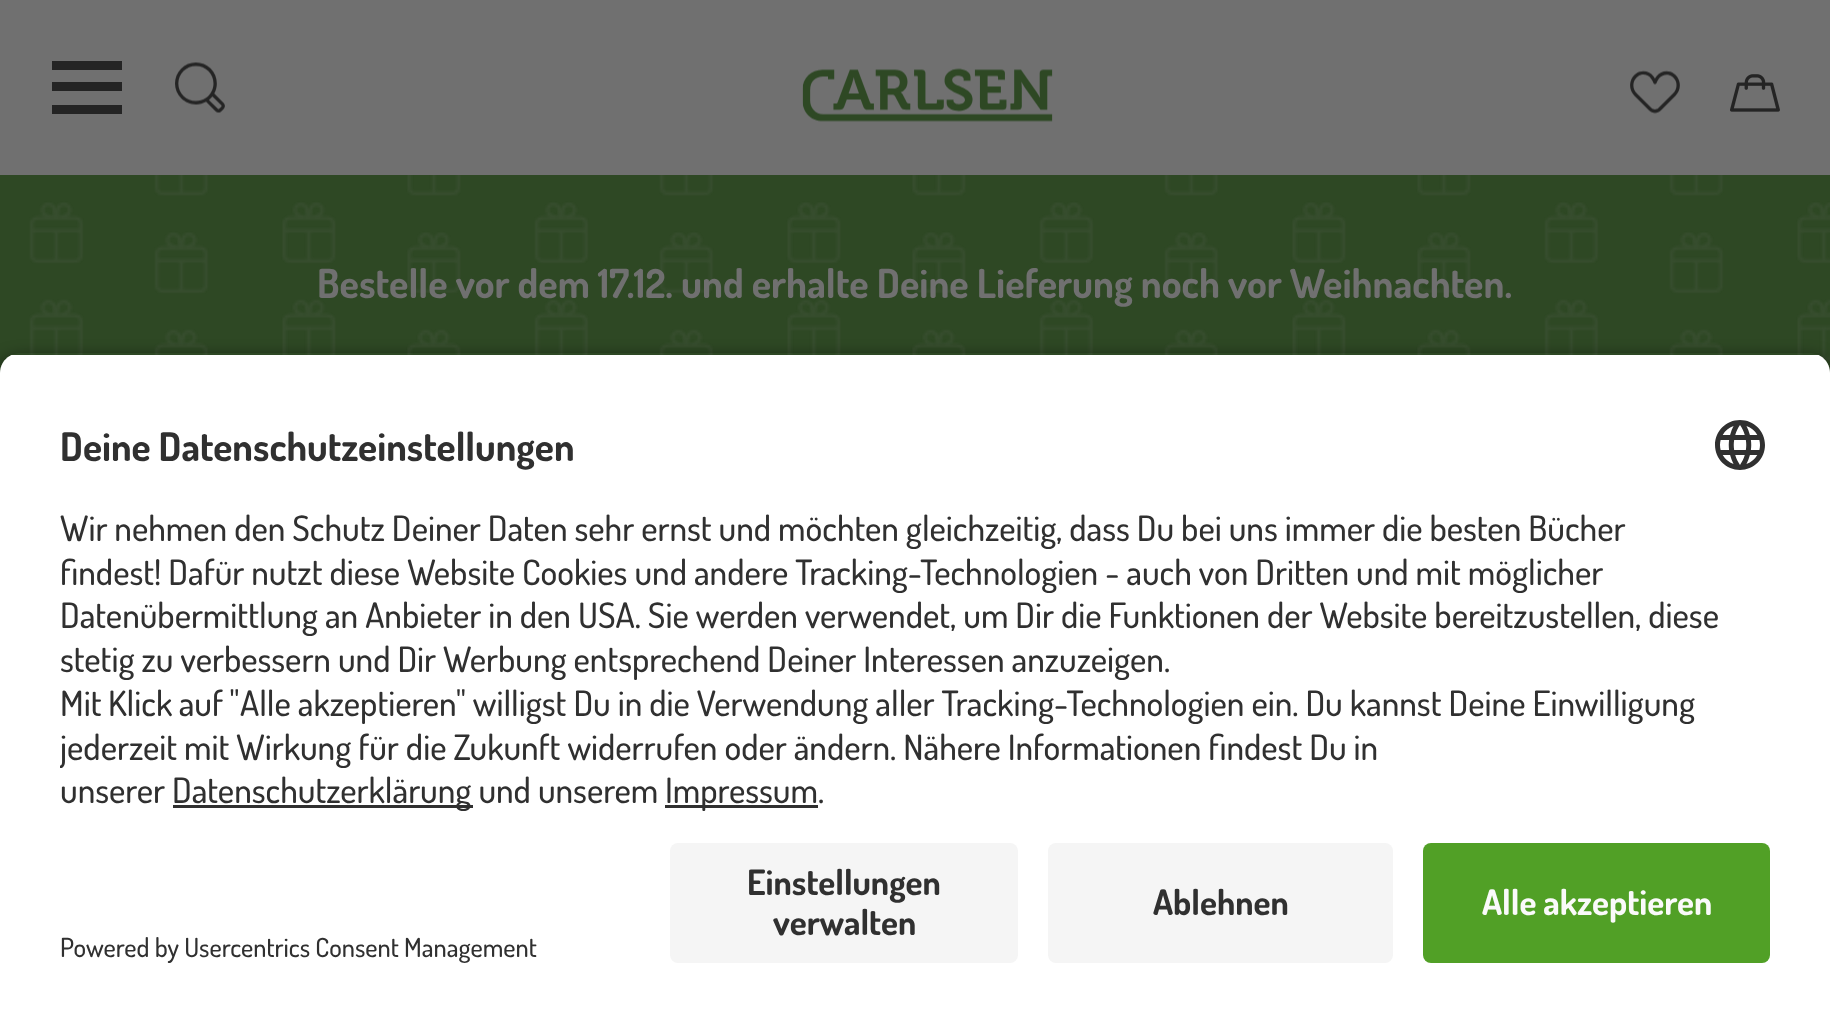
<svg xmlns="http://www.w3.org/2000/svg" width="1830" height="1022">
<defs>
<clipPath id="clip1"><path d="M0 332h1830v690h-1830zm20 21h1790c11 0 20 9 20 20v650h-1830v-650c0-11 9-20 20-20z" clip-rule="evenodd"/></clipPath>
<clipPath id="clip2"><path d="M20 353h1790c11 0 20 9 20 20v450h-1830v-450c0-11 9-20 20-20z"/></clipPath>
<clipPath id="clip3"><rect x="60" y="495" width="1710" height="328"/></clipPath>
</defs>
<rect width="100%" height="100%" fill="#707070"/>
<path d="M122 61v9h-70v-9zm0 21v9h-70v-9zm0 23v9h-70v-9z" fill="#242424"/>
<image x="175" y="62" width="50" height="51" href="media/1.png"/>
<image x="802" y="68" width="251" height="54" href="media/2.png"/>
<image x="1630" y="70" width="50" height="44" href="media/3.png"/>
<image x="1730" y="74" width="50" height="38" href="media/4.png"/>
<rect y="175" width="1830" height="198" fill="#2e4824"/>
<image x="29" y="175" width="1801" height="186" href="media/5.png"/>
<text x="317" y="298" style="font-family:Dosis;font-size:40px;font-weight:bold;fill:#707070">Bestelle vor dem 17.12. und erhalte Deine Lieferung noch vor Weihnachten.</text>
<g clip-path="url(#clip1)">
<rect y="360" width="1830" height="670" rx="20" fill="#000000cc" filter="blur(9px)"/>
</g>
<g clip-path="url(#clip2)">
<rect y="355" width="1830" height="468" fill="#fff"/>
</g>
<text x="60" y="461" style="font-family:Dosis;font-size:39.4px;font-weight:bold;fill:#303030">Deine Datenschutzeinstellungen</text>
<image x="1715" y="420" width="50" height="50" href="media/6.png"/>
<text x="60" y="541" style="font-family:Dosis;font-size:35px;font-weight:500;fill:#303030">Wir nehmen den Schutz Deiner Daten sehr ernst und möchten gleichzeitig, dass Du bei uns immer die besten Bücher</text>
<text x="60" y="585" style="font-family:Dosis;font-size:35px;font-weight:500;fill:#303030">findest! Dafür nutzt diese Website Cookies und andere Tracking-Technologien - auch von Dritten und mit möglicher</text>
<text x="60" y="628" style="font-family:Dosis;font-size:35px;font-weight:500;fill:#303030">Datenübermittlung an Anbieter in den USA. Sie werden verwendet, um Dir die Funktionen der Website bereitzustellen, diese</text>
<text x="60" y="672" style="font-family:Dosis;font-size:35px;font-weight:500;fill:#303030">stetig zu verbessern und Dir Werbung entsprechend Deiner Interessen anzuzeigen.</text>
<text x="60" y="716" word-spacing="-0.5" style="font-family:Dosis;font-size:35px;font-weight:500;fill:#303030">Mit Klick auf "</text>
<text x="240" y="716" style="font-family:Dosis;font-size:35px;font-weight:500;fill:#303030">Alle akzeptieren" willigst Du in die Verwendung aller Tracking-Technologien ein. Du kannst Deine Einwilligung</text>
<g clip-path="url(#clip3)">
<text x="60" y="760" style="font-family:Dosis;font-size:35px;font-weight:500;fill:#303030">jederzeit mit Wirkung für die Zukunft widerrufen oder ändern. Nähere Informationen findest Du in</text>
</g>
<text x="60" y="803" style="font-family:Dosis;font-size:35px;font-weight:500;fill:#303030">unserer</text>
<rect x="173" y="805" width="300" height="3" fill="#303030"/>
<text x="172" y="803" style="font-family:Dosis;font-size:35px;font-weight:500;fill:#303030">Datenschutzerklärung und unserem</text>
<rect x="665" y="805" width="153" height="3" fill="#303030"/>
<text x="665" y="803" style="font-family:Dosis;font-size:35px;font-weight:500;fill:#303030">Impressum.</text>
<rect y="823" width="1830" height="199" fill="#fff"/>
<rect x="670" y="843" width="348" height="120" rx="8" fill="#f5f5f5"/>
<text x="747" y="895" style="font-family:Dosis;font-size:35px;font-weight:bold;fill:#303030">Einstellungen</text>
<text x="773" y="935" style="font-family:Dosis;font-size:35px;font-weight:bold;fill:#303030">verwalten</text>
<rect x="1048" y="843" width="345" height="120" rx="8" fill="#f5f5f5"/>
<text x="1153" y="915" style="font-family:Dosis;font-size:35px;font-weight:bold;fill:#303030">Ablehnen</text>
<rect x="1423" y="843" width="347" height="120" rx="8" fill="#51a026"/>
<text x="1482" y="915" style="font-family:Dosis;font-size:35px;font-weight:bold;fill:#fafafa">Alle akzeptieren</text>
<text x="60" y="957" style="font-family:Dosis;font-size:26.25px;font-weight:500;fill:#303030">Powered by Usercentrics Consent Management</text>
</svg>
